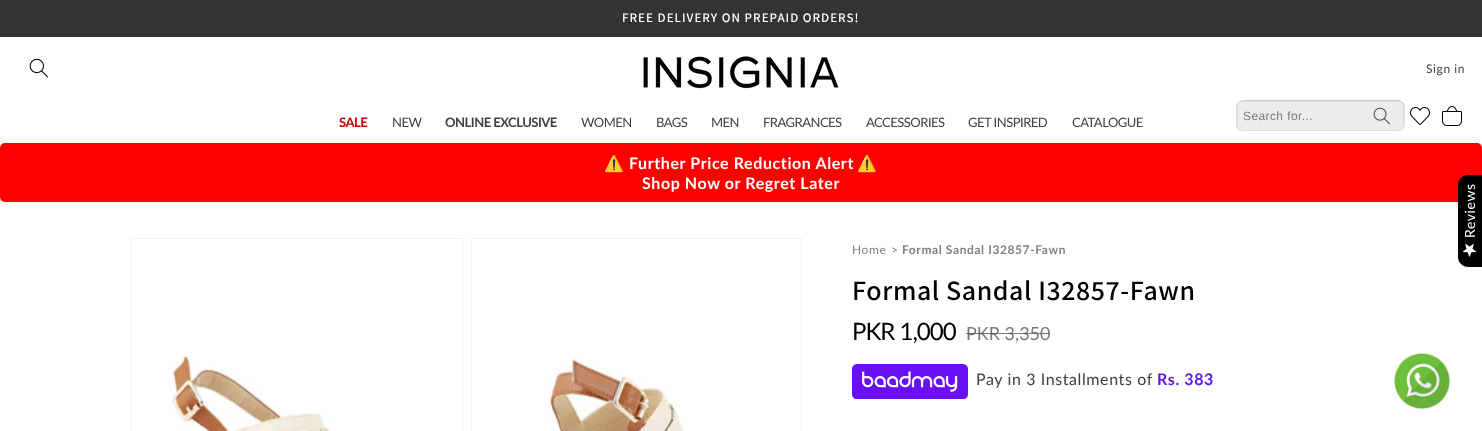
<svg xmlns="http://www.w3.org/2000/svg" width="1482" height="431">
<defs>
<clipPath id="clip1"><rect x="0" y="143" width="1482" height="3"/></clipPath>
</defs>
<rect width="100%" height="100%" fill="#fff"/>
<rect y="143" width="1482" height="59" rx="5" fill="#f00"/>
<g clip-path="url(#clip1)">
<rect y="39" width="1482" height="106" fill="#00000012" filter="blur(2.5px)"/>
</g>
<rect width="1482" height="37" fill="#333"/>
<text x="622" y="22" style="font-family:Assistant;font-size:13px;font-weight:600;letter-spacing:1px;fill:#fff">FREE DELIVERY ON PREPAID ORDERS!</text>
<image x="29" y="58" width="19" height="20" href="media/1.png"/>
<image x="643" y="56" width="196" height="33" href="media/2.png"/>
<text x="1426" y="73" style="font-family:Lato;font-size:12px;letter-spacing:0.6px;fill:#404040">Sign in</text>
<path d="M1244 101h153c4 0 8 4 8 8v-1c0-4-4-8-8-8h-153c-4 0-8 4-8 8v1c0-4 4-8 8-8z" fill="#ccc"/>
<path d="M1244 100c-4.5 0-8 3.5-8 8v16c0 4.5 3.5 8 8 8h1c-9 0-8-9.5-8-16c0-6.5-1-16 8-16z" fill="#0000001f"/>
<path d="M1396 132c10.5 0 9-8.5 9-16c0-7.5 1.5-16-9-16c9 0 8 9.5 8 16c0 6.5 1 16-8 16z" fill="#0000001f"/>
<rect x="1237.5" y="101.5" width="166" height="29" rx="4.5" fill="#00000012" stroke="#ddd"/>
<text x="1243" y="120" style="font-family:Liberation Sans;font-size:12px;letter-spacing:0.4px;fill:#7a7a7a">Search for...</text>
<image x="1373" y="107" width="17" height="18" href="media/3.png"/>
<image x="1410" y="107" width="20" height="18" href="media/4.png"/>
<image x="1442" y="106" width="20" height="20" href="media/5.png"/>
<text x="339" y="127" style="font-family:Lato;font-size:13px;font-weight:bold;letter-spacing:-0.5px;fill:#c00">SALE</text>
<text x="392" y="127" style="font-family:Lato;font-size:13px;letter-spacing:-0.5px;fill:#404040">NEW</text>
<text x="445" y="127" style="font-family:Lato;font-size:13px;font-weight:bold;letter-spacing:-0.5px;fill:#404040">ONLINE EXCLUSIVE</text>
<text x="581" y="127" style="font-family:Lato;font-size:13px;letter-spacing:-0.5px;fill:#404040">WOMEN</text>
<text x="656" y="127" style="font-family:Lato;font-size:13px;letter-spacing:-0.5px;fill:#404040">BAGS</text>
<text x="711" y="127" style="font-family:Lato;font-size:13px;letter-spacing:-0.5px;fill:#404040">MEN</text>
<text x="763" y="127" style="font-family:Lato;font-size:13px;letter-spacing:-0.5px;fill:#404040">FRAGRANCES</text>
<text x="866" y="127" style="font-family:Lato;font-size:13px;letter-spacing:-0.5px;fill:#404040">ACCESSORIES</text>
<text x="968" y="127" style="font-family:Lato;font-size:13px;letter-spacing:-0.5px;fill:#404040">GET INSPIRED</text>
<text x="1072" y="127" style="font-family:Lato;font-size:13px;letter-spacing:-0.5px;fill:#404040">CATALOGUE</text>
<text x="604" y="169" style="font-family:Noto Color Emoji;font-size:16px;font-weight:bold;letter-spacing:0.6px;fill:#fff">⚠️</text>
<text x="629" y="169" style="font-family:Lato;font-size:16px;font-weight:bold;letter-spacing:0.6px;fill:#fff">Further Price Reduction Alert</text>
<text x="857" y="169" style="font-family:Noto Color Emoji;font-size:16px;font-weight:bold;letter-spacing:0.6px;fill:#fff">⚠️</text>
<text x="642" y="189" style="font-family:Lato;font-size:16px;font-weight:bold;letter-spacing:0.6px;fill:#fff">Shop Now or Regret Later</text>
<rect x="131.5" y="238.5" width="331" height="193" fill="none" stroke="#f2f2f2"/>
<image x="171" y="356" width="165" height="75" href="media/6.png"/>
<rect x="471.5" y="238.5" width="330" height="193" fill="none" stroke="#f2f2f2"/>
<image x="547" y="357" width="137" height="74" href="media/7.png"/>
<text x="852" y="254" style="font-family:Lato;font-size:12px;letter-spacing:0.6px;fill:#808080">Home</text>
<text x="891" y="254" style="font-family:Lato;font-size:12px;letter-spacing:0.6px;fill:#808080">&gt;</text>
<text x="902" y="254" style="font-family:Lato;font-size:12px;font-weight:bold;letter-spacing:0.6px;fill:#808080">Formal Sandal I32857-Fawn</text>
<text x="852" y="300" style="font-family:Assistant;font-size:28px;font-weight:600;letter-spacing:0.6px;fill:#000">Formal Sandal I32857-Fawn</text>
<text x="852" y="340" style="font-family:Lato;font-size:24px;letter-spacing:-1px;fill:#000">PKR 1,000</text>
<text x="966" y="340" style="font-family:Lato;font-size:18px;fill:#7a7a7a">PKR 3,350</text>
<rect x="966" y="333" width="84" height="1" fill="#4d4d4dbf"/>
<image x="852" y="364" width="116" height="35" href="media/8.png"/>
<text x="976" y="385" style="font-family:Lato;font-size:16px;letter-spacing:0.6px;fill:#404040">Pay in 3 Installments of</text>
<text x="1157" y="385" style="font-family:Lato;font-size:16px;font-weight:bold;letter-spacing:0.6px;fill:#6016eb">Rs. 383</text>
<path d="M1468 175h14v92h-14c-5.5 0-10-4.5-10-10v-72c0-5.5 4.5-10 10-10z" fill="#000"/>
<text x="1475" y="238" transform="rotate(-90 1475 238)" style="font-family:Lato;font-size:14px;letter-spacing:0.6px;fill:#fff">Reviews</text>
<image x="1463" y="243" width="14" height="14" href="media/9.png"/>
<image x="1394" y="353" width="57" height="57" href="media/10.png"/>
</svg>
